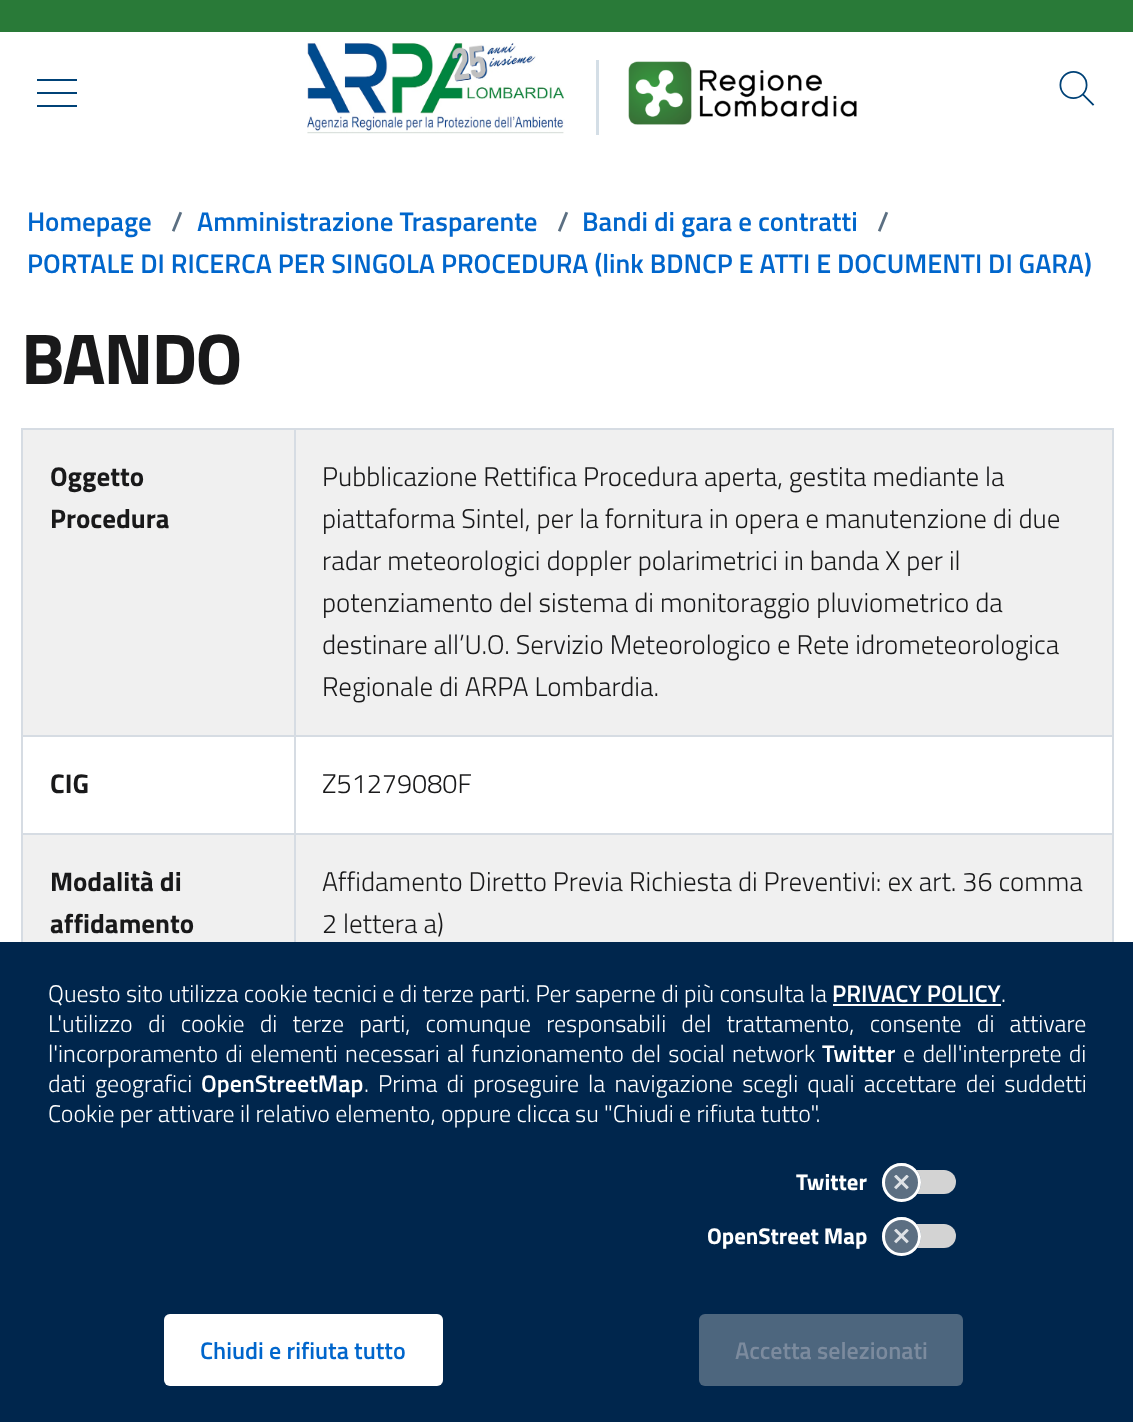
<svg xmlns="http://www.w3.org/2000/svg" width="1133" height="1422">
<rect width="100%" height="100%" fill="#fff"/>
<rect width="1133" height="32" fill="#297a38"/>
<image x="37" y="79" width="40" height="28" href="media/1.png"/>
<image x="307" y="40" width="258" height="94" href="media/2.png"/>
<rect x="596" y="60" width="3" height="75" fill="#d4dee6"/>
<image x="628" y="61" width="229" height="64" href="media/3.png"/>
<image x="1059" y="71" width="36" height="35" href="media/4.png"/>
<text x="27" y="231" style="font-family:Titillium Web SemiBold;font-size:27px;font-weight:600;fill:#06c">Homepage</text>
<text x="171" y="231" style="font-family:Titillium Web SemiBold;font-size:27px;font-weight:600;fill:#5b6f82">/</text>
<text x="197" y="231" style="font-family:Titillium Web SemiBold;font-size:27px;font-weight:600;fill:#06c">Amministrazione Trasparente</text>
<text x="557" y="231" style="font-family:Titillium Web SemiBold;font-size:27px;font-weight:600;fill:#5b6f82">/</text>
<text x="582" y="231" style="font-family:Titillium Web SemiBold;font-size:27px;font-weight:600;fill:#06c">Bandi di gara e contratti</text>
<text x="877" y="231" style="font-family:Titillium Web SemiBold;font-size:27px;font-weight:600;fill:#5b6f82">/</text>
<text x="27" y="273" style="font-family:Titillium Web SemiBold;font-size:27px;font-weight:600;fill:#06c">PORTALE DI RICERCA PER SINGOLA PROCEDURA (link BDNCP E ATTI E DOCUMENTI DI GARA)</text>
<text x="21" y="384" style="font-family:Titillium Web;font-size:72px;font-weight:bold;letter-spacing:-2px;fill:#19191a">BANDO</text>
<rect x="21" y="428" width="1092" height="2" fill="#d6dce3"/>
<rect x="1112" y="428" width="2" height="514" fill="#d6dce3"/>
<rect x="21" y="428" width="2" height="514" fill="#d6dce3"/>
<rect x="23" y="430" width="1089" height="305" fill="#f0f0f0"/>
<rect x="23" y="835" width="1089" height="107" fill="#f0f0f0"/>
<rect x="294" y="833" width="2" height="109" fill="#d6dce3"/>
<rect x="294" y="833" width="819" height="2" fill="#d6dce3"/>
<rect x="294" y="735" width="2" height="99" fill="#d6dce3"/>
<rect x="294" y="735" width="819" height="2" fill="#d6dce3"/>
<rect x="294" y="428" width="2" height="309" fill="#d6dce3"/>
<rect x="21" y="735" width="275" height="2" fill="#d6dce3"/>
<text x="50" y="486" style="font-family:Titillium Web;font-size:27px;font-weight:bold;fill:#19191a">Oggetto</text>
<text x="50" y="528" style="font-family:Titillium Web;font-size:27px;font-weight:bold;fill:#19191a">Procedura</text>
<text x="322" y="486" style="font-family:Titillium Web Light;font-size:27px;font-weight:300;fill:#19191a">Pubblicazione Rettifica Procedura aperta, gestita mediante la</text>
<text x="322" y="528" style="font-family:Titillium Web Light;font-size:27px;font-weight:300;fill:#19191a">piattaforma Sintel, per la fornitura in opera e manutenzione di due</text>
<text x="322" y="570" style="font-family:Titillium Web Light;font-size:27px;font-weight:300;fill:#19191a">radar meteorologici doppler polarimetrici in banda X per il</text>
<text x="322" y="612" style="font-family:Titillium Web Light;font-size:27px;font-weight:300;fill:#19191a">potenziamento del sistema di monitoraggio pluviometrico da</text>
<text x="322" y="654" style="font-family:Titillium Web Light;font-size:27px;font-weight:300;fill:#19191a">destinare all’U.O. Servizio Meteorologico e Rete idrometeorologica</text>
<text x="322" y="696" style="font-family:Titillium Web Light;font-size:27px;font-weight:300;fill:#19191a">Regionale di ARPA Lombardia.</text>
<rect x="21" y="833" width="275" height="2" fill="#d6dce3"/>
<text x="50" y="793" style="font-family:Titillium Web;font-size:27px;font-weight:bold;fill:#19191a">CIG</text>
<text x="322" y="793" style="font-family:Titillium Web Light;font-size:27px;font-weight:300;fill:#19191a">Z51279080F</text>
<text x="50" y="891" style="font-family:Titillium Web;font-size:27px;font-weight:bold;fill:#19191a">Modalità di</text>
<text x="50" y="933" style="font-family:Titillium Web;font-size:27px;font-weight:bold;fill:#19191a">affidamento</text>
<text x="322" y="891" style="font-family:Titillium Web Light;font-size:27px;font-weight:300;fill:#19191a">Affidamento Diretto Previa Richiesta di Preventivi: ex art. 36 comma</text>
<text x="322" y="933" style="font-family:Titillium Web Light;font-size:27px;font-weight:300;fill:#19191a">2 lettera a)</text>
<rect y="942" width="1133" height="480" fill="#00264d"/>
<text x="48" y="1002" style="font-family:Titillium Web Light;font-size:24px;font-weight:300;fill:#fff">Questo sito utilizza cookie tecnici e di terze parti. Per saperne di più consulta la</text>
<text x="832" y="1002" style="font-family:Titillium Web SemiBold;font-size:24px;font-weight:600;fill:#fff">PRIVACY POLICY</text>
<rect x="833" y="1004" width="168" height="2" fill="#fff"/>
<text x="1001" y="1002" style="font-family:Titillium Web Light;font-size:24px;font-weight:300;fill:#fff">.</text>
<text x="48" y="1032" word-spacing="9.9" style="font-family:Titillium Web Light;font-size:24px;font-weight:300;fill:#fff">L'utilizzo di cookie di terze parti, comunque responsabili del trattamento, consente di attivare</text>
<text x="48" y="1062" word-spacing="2" style="font-family:Titillium Web Light;font-size:24px;font-weight:300;fill:#fff">l'incorporamento di elementi necessari al funzionamento</text>
<text x="631" y="1062" word-spacing="2" style="font-family:Titillium Web Light;font-size:24px;font-weight:300;fill:#fff">del social network</text>
<text x="822" y="1062" style="font-family:Titillium Web SemiBold;font-size:24px;font-weight:600;fill:#fff">Twitter</text>
<text x="903" y="1062" word-spacing="2" style="font-family:Titillium Web Light;font-size:24px;font-weight:300;fill:#fff">e dell'interprete di</text>
<text x="48" y="1092" word-spacing="3.75" style="font-family:Titillium Web Light;font-size:24px;font-weight:300;fill:#fff">dati geografici</text>
<text x="201" y="1092" style="font-family:Titillium Web SemiBold;font-size:24px;font-weight:600;fill:#fff">OpenStreetMap</text>
<text x="364" y="1092" style="font-family:Titillium Web Light;font-size:24px;font-weight:300;fill:#fff">.</text>
<text x="378" y="1092" word-spacing="3.75" style="font-family:Titillium Web Light;font-size:24px;font-weight:300;fill:#fff">Prima di proseguire la navigazione scegli quali accettare dei suddetti</text>
<text x="48" y="1122" style="font-family:Titillium Web Light;font-size:24px;font-weight:300;fill:#fff">Cookie per attivare il relativo elemento, oppure clicca su "Chiudi e rifiuta tutto".</text>
<text x="796" y="1190" style="font-family:Titillium Web;font-size:22.75px;font-weight:bold;fill:#fff">Twitter</text>
<rect x="887" y="1170" width="69" height="24" rx="12" fill="#d3d3d3"/>
<circle cx="901.5" cy="1182.5" r="19.5" fill="#5c6f82"/>
<image x="894" y="1175" width="15" height="15" href="media/5.png"/>
<circle cx="901.5" cy="1182.5" r="18" fill="none" stroke="#fff" stroke-width="3"/>
<text x="707" y="1244" style="font-family:Titillium Web;font-size:22.75px;font-weight:bold;fill:#fff">OpenStreet Map</text>
<rect x="887" y="1224" width="69" height="24" rx="12" fill="#d3d3d3"/>
<circle cx="901.5" cy="1236.5" r="19.5" fill="#5c6f82"/>
<image x="894" y="1229" width="15" height="15" href="media/5.png"/>
<circle cx="901.5" cy="1236.5" r="18" fill="none" stroke="#fff" stroke-width="3"/>
<rect x="164" y="1314" width="279" height="72" rx="6" fill="#fff"/>
<path d="M170 1316h266c4 0 6 2 6 6v62c1-1 1-3 1-4v-60c0-3-3-6-6-6h-267c-3 0-6 3-6 6v2c0-4 2-6 6-6z" fill="#ffffff26"/>
<text x="200" y="1359" style="font-family:Titillium Web SemiBold;font-size:24px;font-weight:600;fill:#06c">Chiudi e rifiuta tutto</text>
<rect x="699" y="1314" width="264" height="72" rx="6" fill="#4d667e"/>
<text x="735" y="1359" style="font-family:Titillium Web SemiBold;font-size:24px;font-weight:600;fill:#7c8b9e">Accetta selezionati</text>
</svg>
